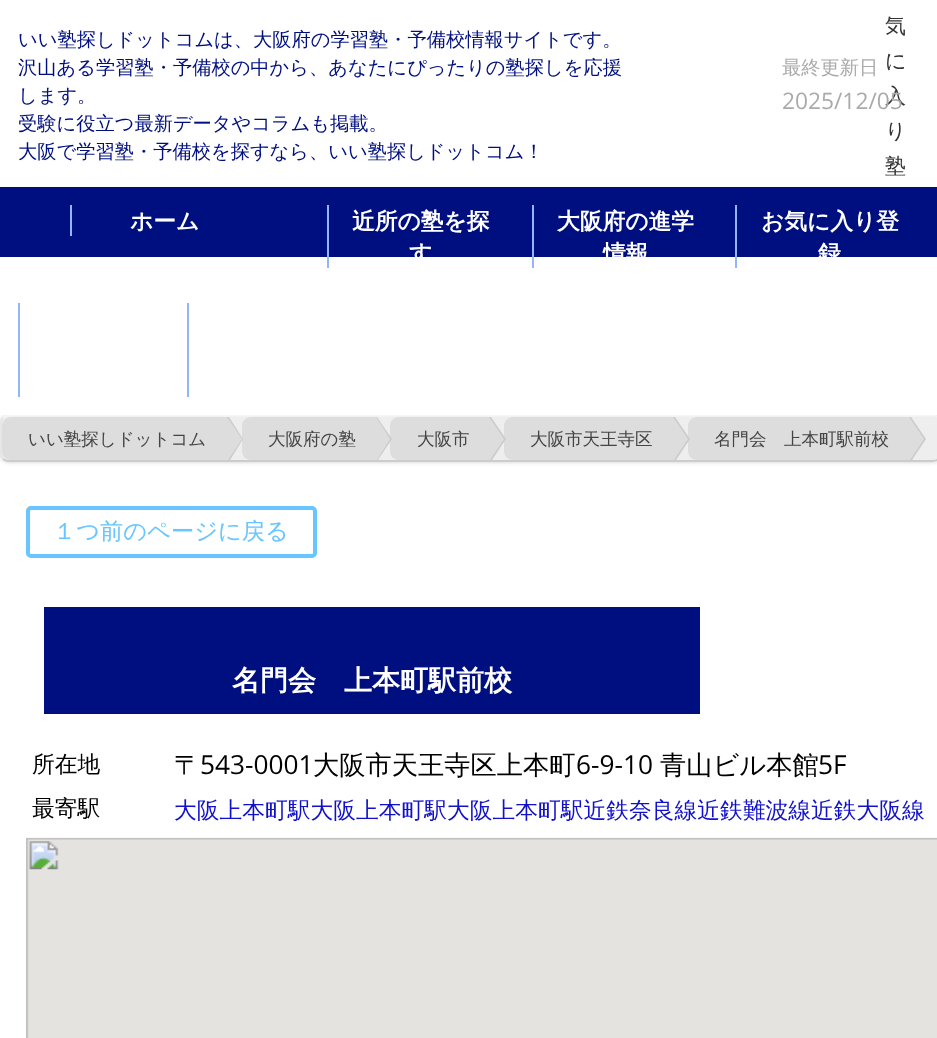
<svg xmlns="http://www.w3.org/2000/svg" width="937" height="1038">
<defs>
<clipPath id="clip1"><rect x="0" y="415" width="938" height="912"/></clipPath>
<clipPath id="clip2"><rect y="415" width="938" height="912"/></clipPath>
</defs>
<rect width="100%" height="100%" fill="#fff"/>
<text x="18" y="46" style="font-family:WenQuanYi Zen Hei;font-size:19.25px;font-weight:500;fill:#000f7f">いい塾探しドットコムは、大阪府の学習塾・予備校情報サイトです。</text>
<text x="18" y="74" style="font-family:WenQuanYi Zen Hei;font-size:19.25px;font-weight:500;fill:#000f7f">沢山ある学習塾・予備校の中から、あなたにぴったりの塾探しを応援</text>
<text x="18" y="102" style="font-family:WenQuanYi Zen Hei;font-size:19.25px;font-weight:500;fill:#000f7f">します。</text>
<text x="18" y="130" style="font-family:WenQuanYi Zen Hei;font-size:19.25px;font-weight:500;fill:#000f7f">受験に役立つ最新データやコラムも掲載。</text>
<text x="18" y="158" style="font-family:WenQuanYi Zen Hei;font-size:19.25px;font-weight:500;fill:#000f7f">大阪で学習塾・予備校を探すなら、いい塾探しドットコム！</text>
<text x="885" y="33" style="font-family:WenQuanYi Zen Hei;font-size:21px;font-weight:500;fill:#333">気</text>
<text x="885" y="68" style="font-family:WenQuanYi Zen Hei;font-size:21px;font-weight:500;fill:#333">に</text>
<text x="885" y="103" style="font-family:WenQuanYi Zen Hei;font-size:21px;font-weight:500;fill:#333">入</text>
<text x="885" y="138" style="font-family:WenQuanYi Zen Hei;font-size:21px;font-weight:500;fill:#333">り</text>
<text x="885" y="173" style="font-family:WenQuanYi Zen Hei;font-size:21px;font-weight:500;fill:#333">塾</text>
<text x="782" y="74" style="font-family:WenQuanYi Zen Hei;font-size:19.25px;font-weight:500;fill:#aaa">最終更新日</text>
<text x="782" y="109" style="font-family:Open Sans;font-size:22.75px;fill:#aaa">2025/12/05</text>
<rect y="187" width="937" height="70" fill="#000f7f"/>
<rect x="70" y="205" width="2" height="31" fill="#94b6f7"/>
<text x="130" y="229" style="font-family:WenQuanYi Zen Hei;font-size:22.75px;font-weight:bold;fill:#fff">ホーム</text>
<rect x="327" y="205" width="2" height="63" fill="#94b6f7"/>
<text x="352" y="229" style="font-family:WenQuanYi Zen Hei;font-size:22.75px;font-weight:bold;fill:#fff">近所の塾を探</text>
<text x="409" y="261" style="font-family:WenQuanYi Zen Hei;font-size:22.75px;font-weight:bold;fill:#fff">す</text>
<rect x="532" y="205" width="2" height="63" fill="#94b6f7"/>
<text x="557" y="229" style="font-family:WenQuanYi Zen Hei;font-size:22.75px;font-weight:bold;fill:#fff">大阪府の進学</text>
<text x="603" y="261" style="font-family:WenQuanYi Zen Hei;font-size:22.75px;font-weight:bold;fill:#fff">情報</text>
<rect x="735" y="205" width="2" height="63" fill="#94b6f7"/>
<text x="761" y="229" style="font-family:WenQuanYi Zen Hei;font-size:22.75px;font-weight:bold;fill:#fff">お気に入り登</text>
<text x="818" y="261" style="font-family:WenQuanYi Zen Hei;font-size:22.75px;font-weight:bold;fill:#fff">録</text>
<rect x="187" y="303" width="2" height="94" fill="#94b6f7"/>
<rect x="18" y="303" width="2" height="94" fill="#94b6f7"/>
<g clip-path="url(#clip1)">
<rect y="415" width="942" height="47" rx="9" fill="#00000033" filter="blur(2px)"/>
</g>
<rect y="415" width="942" height="47" rx="9" fill="#eee"/>
<g clip-path="url(#clip2)">
<path d="M3 418c1.5-1.5 3.5-2.5 5.5-2.5h924.5c2 0 4 1 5.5 2.5" fill="none" stroke="#f5f5f5" stroke-width="1.8"/>
</g>
<path d="M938.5 459c-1.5 1.5-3.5 2-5.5 2h-924c-2.5 0-4.5-.5-6-2" fill="none" stroke="#ccc" stroke-width="1.8"/>
<path d="M3 459c-1.5-1.5-2-3.5-2-6v-29.5c0-2 .5-4 2-5.5" fill="none" stroke="#e5e5e5" stroke-width="1.8"/>
<path d="M11 417h213v43h-213c-5 0-9-4-9-9v-25c0-5 4-9 9-9z" fill="#ddd"/>
<path d="M251 417h122v43h-122c-5 0-9-4-9-9v-25c0-5 4-9 9-9z" fill="#ddd"/>
<path d="M229 417l14 22l-13 21h-4v-43z" fill="#ccc"/>
<path d="M227 417l15 22l-14 21h-4v-43z" fill="#ddd"/>
<text x="28" y="445" style="font-family:WenQuanYi Zen Hei;font-size:17.5px;font-weight:500;fill:#444">いい塾探しドットコム</text>
<path d="M399 417h88v43h-88c-5 0-9-4-9-9v-25c0-5 4-9 9-9z" fill="#ddd"/>
<path d="M377 417l15 22l-14 21h-4v-43z" fill="#ccc"/>
<path d="M376 417l14 22l-13 21h-4v-43z" fill="#ddd"/>
<text x="268" y="445" style="font-family:WenQuanYi Zen Hei;font-size:17.5px;font-weight:500;fill:#444">大阪府の塾</text>
<path d="M513 417h157v43h-157c-5 0-9-4-9-9v-25c0-5 4-9 9-9z" fill="#ddd"/>
<path d="M491 417l15 22l-14 21h-4v-43z" fill="#ccc"/>
<path d="M489 417l15 22l-14 21h-4v-43z" fill="#ddd"/>
<text x="417" y="445" style="font-family:WenQuanYi Zen Hei;font-size:17.5px;font-weight:500;fill:#444">大阪市</text>
<path d="M697 417h210v43h-210c-5 0-9-4-9-9v-25c0-5 4-9 9-9z" fill="#ddd"/>
<path d="M675 417l15 22l-14 21h-4v-43z" fill="#ccc"/>
<path d="M673 417l15 22l-14 21h-4v-43z" fill="#ddd"/>
<text x="530" y="445" style="font-family:WenQuanYi Zen Hei;font-size:17.5px;font-weight:500;fill:#444">大阪市天王寺区</text>
<path d="M911 417l15 22l-14 21h-4v-43z" fill="#ccc"/>
<path d="M909 417l15 22l-14 21h-4v-43z" fill="#ddd"/>
<text x="714" y="445" style="font-family:WenQuanYi Zen Hei;font-size:17.5px;font-weight:500;fill:#444">名門会　上本町駅前校</text>
<rect x="28" y="508" width="287" height="48" rx="3" fill="none" stroke="#67c5ff" stroke-width="4"/>
<text x="53" y="539" style="font-family:WenQuanYi Zen Hei;font-size:23.25px;font-weight:500;fill:#67c5ff">１つ前のページに戻る</text>
<rect x="44" y="607" width="656" height="107" fill="#000f7f"/>
<text x="232" y="690" style="font-family:WenQuanYi Zen Hei;font-size:28px;font-weight:bold;fill:#fff">名門会　上本町駅前校</text>
<text x="32" y="772" style="font-family:WenQuanYi Zen Hei;font-size:22.75px;font-weight:500;fill:#000">所在地</text>
<text x="174" y="774" style="font-family:WenQuanYi Zen Hei;font-size:26.25px;font-weight:500;fill:#000">〒</text>
<text x="200" y="774" style="font-family:Open Sans;font-size:26.25px;fill:#000">543-0001</text>
<text x="313" y="774" style="font-family:WenQuanYi Zen Hei;font-size:26.25px;font-weight:500;fill:#000">大阪市天王寺区上本町</text>
<text x="576" y="774" style="font-family:Open Sans;font-size:26.25px;fill:#000">6-9-10</text>
<text x="660" y="774" style="font-family:WenQuanYi Zen Hei;font-size:26.25px;font-weight:500;fill:#000">青山ビル本館</text>
<text x="818" y="774" style="font-family:Open Sans;font-size:26.25px;fill:#000">5F</text>
<text x="32" y="816" style="font-family:WenQuanYi Zen Hei;font-size:22.75px;font-weight:500;fill:#000">最寄駅</text>
<text x="174" y="818" style="font-family:WenQuanYi Zen Hei;font-size:22.75px;font-weight:500;fill:#11c">大阪上本町駅大阪上本町駅大阪上本町駅近鉄奈良線近鉄難波線近鉄大阪線</text>
<image x="26" y="837" width="911" height="201" href="media/1.png"/>
</svg>
